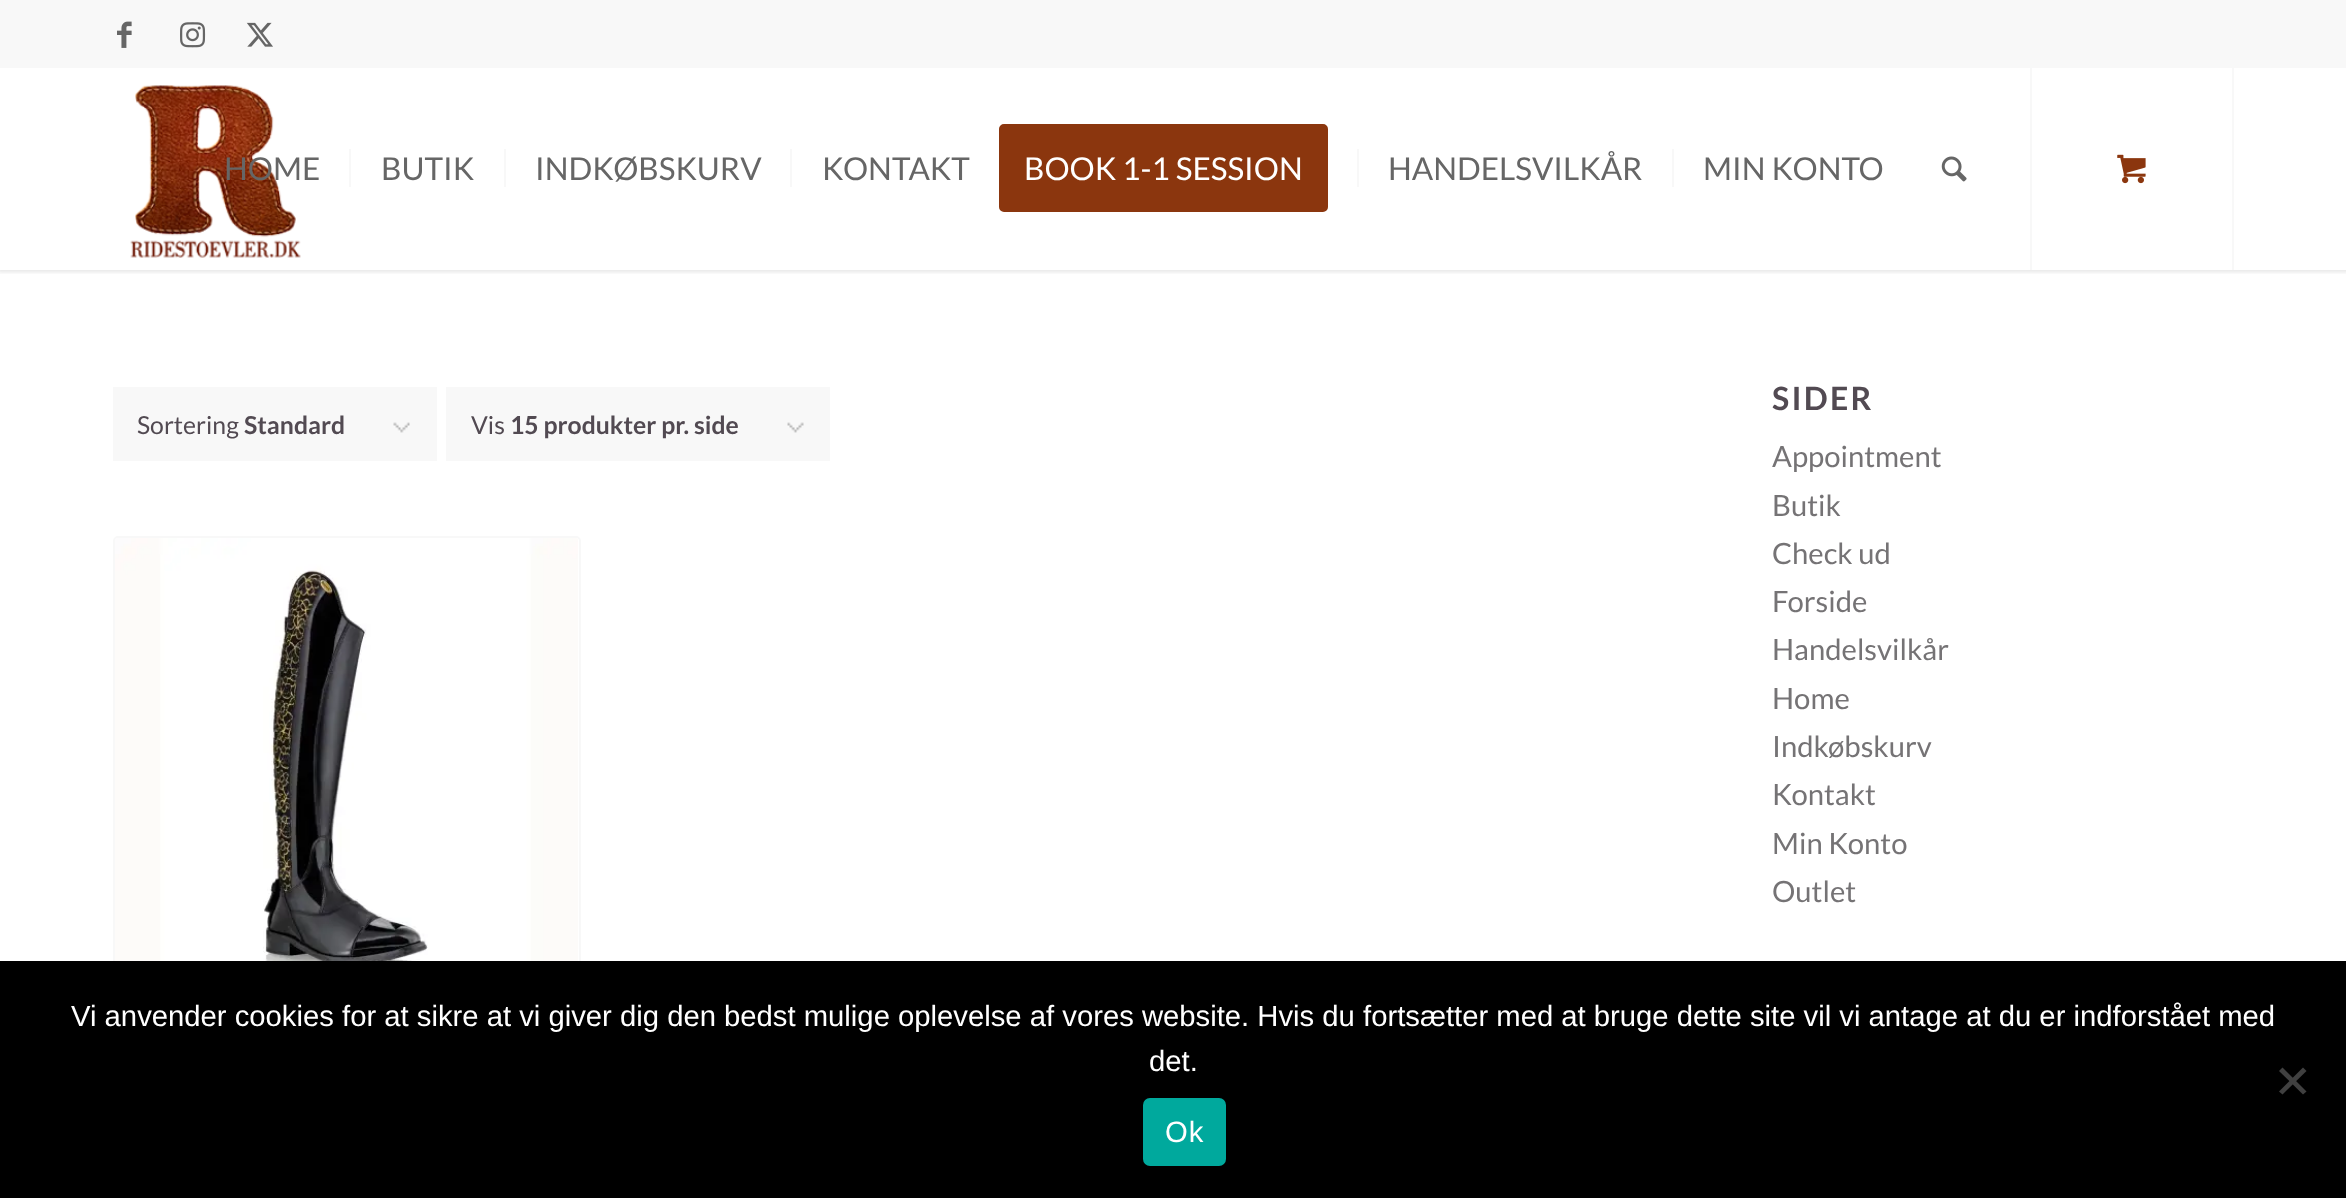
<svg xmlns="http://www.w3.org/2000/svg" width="2346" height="1198">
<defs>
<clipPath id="clip1"><rect x="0" y="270" width="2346" height="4"/></clipPath>
</defs>
<rect width="100%" height="100%" fill="#fff"/>
<g clip-path="url(#clip1)">
<rect x="-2" y="-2" width="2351" height="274" fill="#0000001a" filter="blur(2px)"/>
</g>
<rect width="2346" height="68" fill="#f8f8f8"/>
<image x="117" y="21" width="15" height="27" href="media/1.png"/>
<image x="180" y="22" width="26" height="26" href="media/2.png"/>
<image x="246" y="22" width="27" height="25" href="media/3.png"/>
<image x="130" y="85" width="171" height="173" href="media/4.png"/>
<text x="224" y="180" style="font-family:Lato;font-size:31.5px;fill:#666">HOME</text>
<text x="381" y="180" style="font-family:Lato;font-size:31.5px;fill:#666">BUTIK</text>
<rect x="349" y="149" width="2" height="38" fill="#f8f8f8"/>
<text x="535" y="180" style="font-family:Lato;font-size:31.5px;fill:#666">INDKØBSKURV</text>
<rect x="504" y="149" width="2" height="38" fill="#f8f8f8"/>
<text x="822" y="180" style="font-family:Lato;font-size:31.5px;fill:#666">KONTAKT</text>
<rect x="790" y="149" width="2" height="38" fill="#f8f8f8"/>
<rect x="1001.5" y="126.5" width="324" height="83" rx="2.5" fill="#8b360e" stroke="#8b360e" stroke-width="5"/>
<text x="1024" y="180" style="font-family:Lato;font-size:31.5px;fill:#fff">BOOK 1-1 SESSION</text>
<text x="1388" y="180" style="font-family:Lato;font-size:31.5px;fill:#666">HANDELSVILKÅR</text>
<rect x="1357" y="149" width="2" height="38" fill="#f8f8f8"/>
<text x="1703" y="180" style="font-family:Lato;font-size:31.5px;fill:#666">MIN KONTO</text>
<rect x="1672" y="149" width="2" height="38" fill="#f8f8f8"/>
<image x="1941" y="156" width="26" height="26" href="media/5.png"/>
<rect x="2232" y="68" width="2" height="202" fill="#f8f8f8"/>
<rect x="2030" y="68" width="2" height="202" fill="#f8f8f8"/>
<image x="2117" y="154" width="29" height="30" href="media/6.png"/>
<rect x="113" y="387" width="324" height="74" fill="#f8f8f8"/>
<image x="393" y="422" width="17" height="11" href="media/7.png"/>
<text x="137" y="434" style="font-family:Lato;font-size:24.75px;fill:#524a52">Sortering</text>
<text x="244" y="434" style="font-family:Lato;font-size:24.75px;font-weight:bold;fill:#524a52">Standard</text>
<rect x="446" y="387" width="384" height="74" fill="#f8f8f8"/>
<image x="787" y="422" width="17" height="11" href="media/8.png"/>
<text x="471" y="434" style="font-family:Lato;font-size:24.75px;fill:#524a52">Vis</text>
<text x="510" y="434" style="font-family:Lato;font-size:24.75px;font-weight:bold;fill:#524a52">15 produkter pr. side</text>
<rect x="114" y="537" width="466" height="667" rx="4" fill="none" stroke="#f8f8f8" stroke-width="2"/>
<image x="115" y="538" width="463" height="423" href="media/9.png"/>
<text x="1772" y="410" style="font-family:Lato;font-size:32px;font-weight:bold;letter-spacing:2.25px;fill:#524a52">SIDER</text>
<text x="1772" y="467" style="font-family:Lato;font-size:29.25px;fill:#757375">Appointment</text>
<text x="1772" y="516" style="font-family:Lato;font-size:29.25px;fill:#757375">Butik</text>
<text x="1772" y="564" style="font-family:Lato;font-size:29.25px;fill:#757375">Check ud</text>
<text x="1772" y="612" style="font-family:Lato;font-size:29.25px;fill:#757375">Forside</text>
<text x="1772" y="660" style="font-family:Lato;font-size:29.25px;fill:#757375">Handelsvilkår</text>
<text x="1772" y="709" style="font-family:Lato;font-size:29.25px;fill:#757375">Home</text>
<text x="1772" y="757" style="font-family:Lato;font-size:29.25px;fill:#757375">Indkøbskurv</text>
<text x="1772" y="805" style="font-family:Lato;font-size:29.25px;fill:#757375">Kontakt</text>
<text x="1772" y="854" style="font-family:Lato;font-size:29.25px;fill:#757375">Min Konto</text>
<text x="1772" y="902" style="font-family:Lato;font-size:29.25px;fill:#757375">Outlet</text>
<rect y="961" width="2346" height="237" fill="#000"/>
<text x="71" y="1026" style="font-family:Liberation Sans;font-size:29.25px;fill:#fff">Vi anvender cookies for at sikre at vi giver dig den bedst mulige oplevelse af vores website. Hvis du fortsætter med at bruge dette site vil vi antage at du er indforstået med</text>
<text x="1149" y="1071" style="font-family:Liberation Sans;font-size:29.25px;fill:#fff">det.</text>
<path d="M2303 1067.5l3.5 3.5l-24 23.5l-3.5-3z" fill="#404040"/>
<path d="M2279 1071l3.5-3.5l24 24l-3.5 3z" fill="#404040"/>
<rect x="1143" y="1098" width="83" height="68" rx="7" fill="#00a99d"/>
<text x="1165" y="1142" style="font-family:Liberation Sans;font-size:29.25px;letter-spacing:1px;fill:#fff">Ok</text>
</svg>
